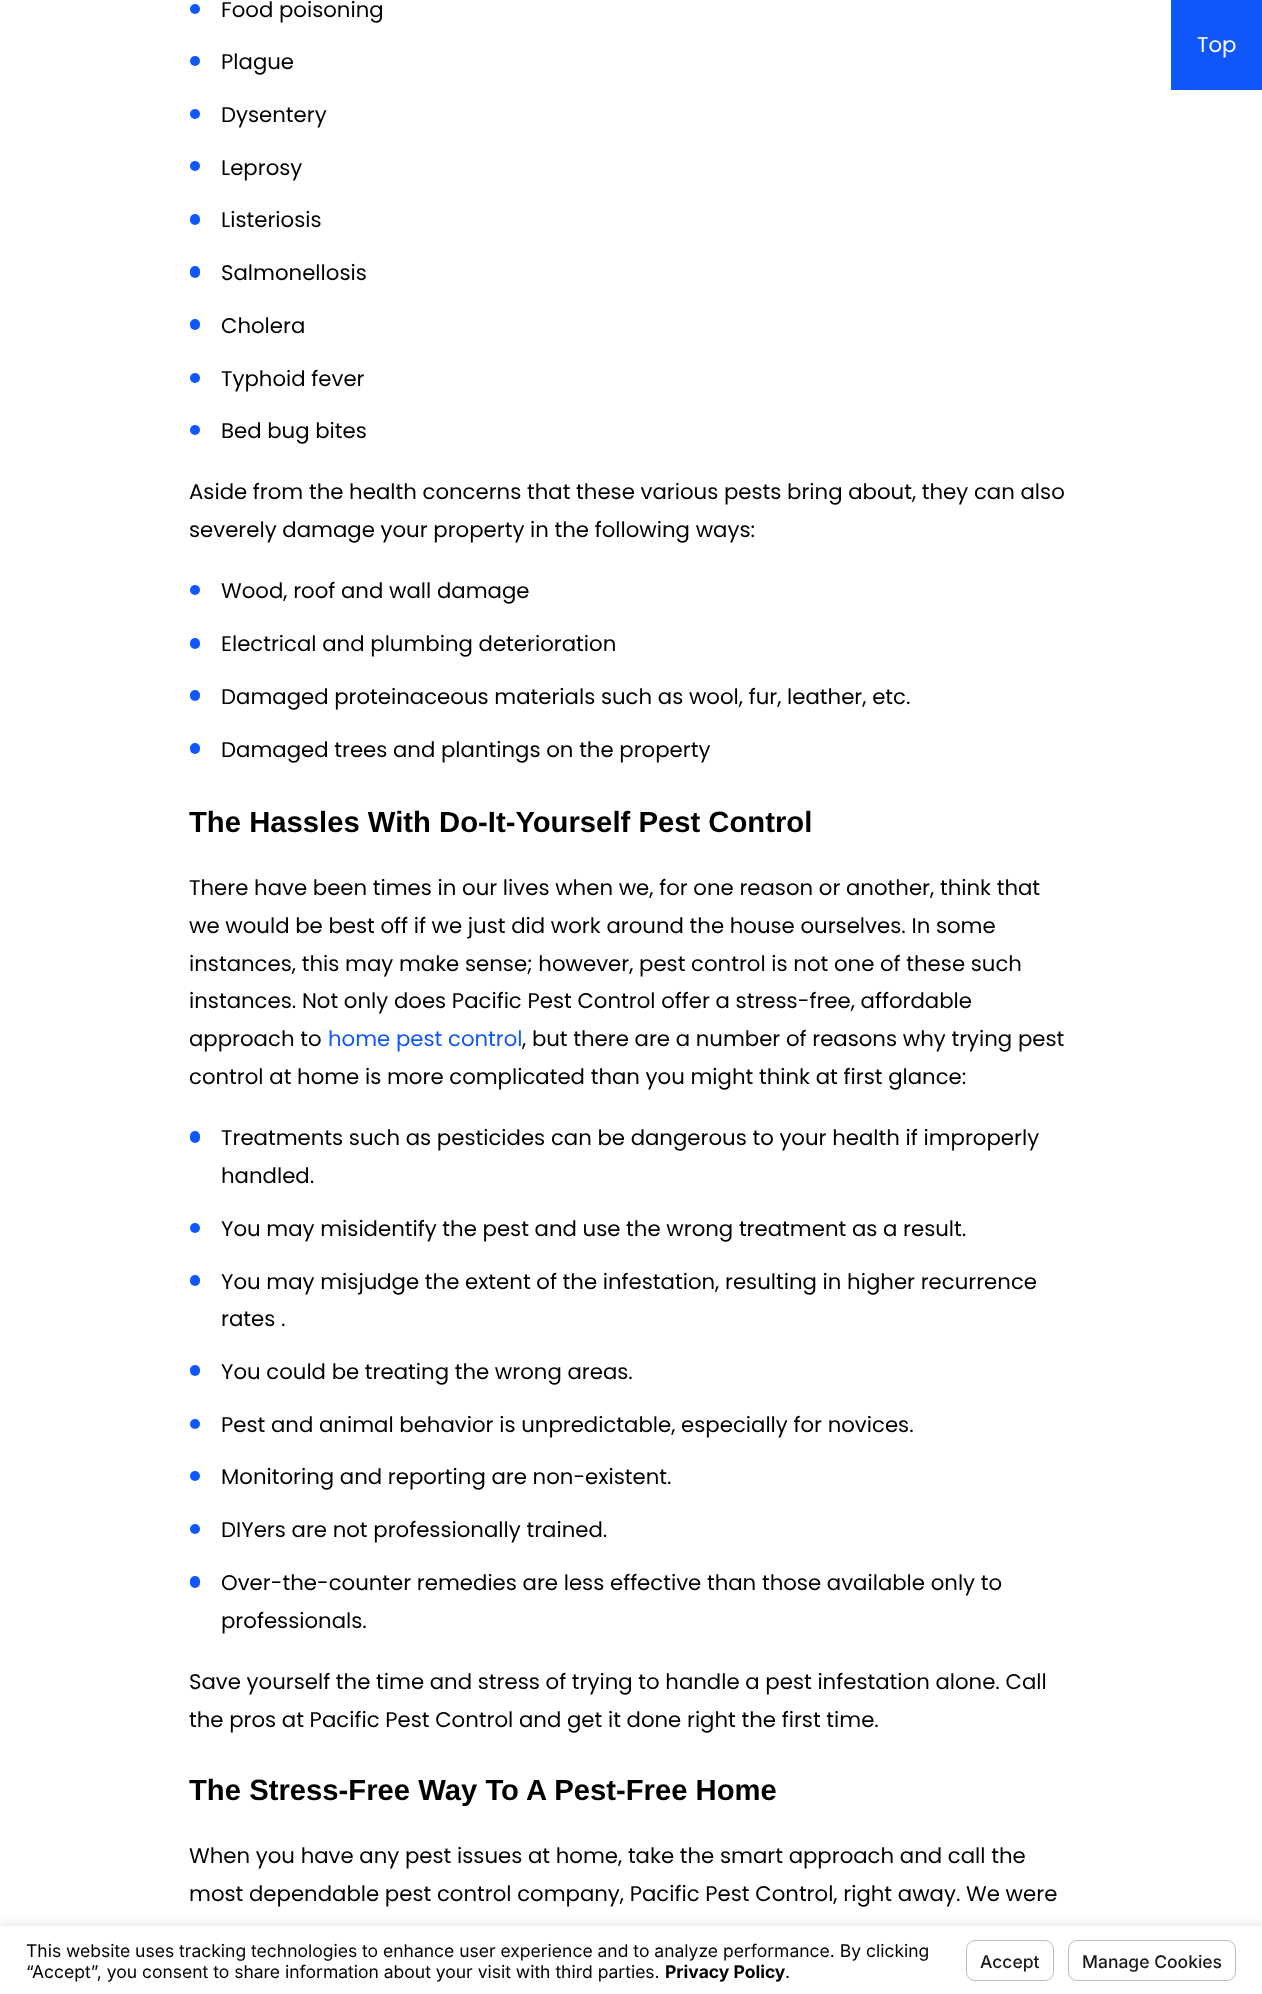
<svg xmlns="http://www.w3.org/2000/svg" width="1262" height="1994">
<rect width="100%" height="100%" fill="#fff"/>
<circle cx="195" cy="9" r="5" fill="#0f56fb"/>
<text x="221" y="17" style="font-family:Poppins;font-size:21.25px;fill:#000">Food poisoning</text>
<circle cx="195" cy="61" r="5" fill="#0f56fb"/>
<text x="221" y="69" style="font-family:Poppins;font-size:21.25px;fill:#000">Plague</text>
<circle cx="195" cy="114" r="5" fill="#0f56fb"/>
<text x="221" y="122" style="font-family:Poppins;font-size:21.25px;fill:#000">Dysentery</text>
<circle cx="195" cy="166" r="5" fill="#0f56fb"/>
<text x="221" y="175" style="font-family:Poppins;font-size:21.25px;fill:#000">Leprosy</text>
<rect x="190" y="214" width="10" height="11" rx="5" fill="#0f56fb"/>
<text x="221" y="227" style="font-family:Poppins;font-size:21.25px;fill:#000">Listeriosis</text>
<rect x="190" y="266" width="10" height="12" rx="5" fill="#0f56fb"/>
<text x="221" y="280" style="font-family:Poppins;font-size:21.25px;fill:#000">Salmonellosis</text>
<rect x="190" y="319" width="10" height="11" rx="5" fill="#0f56fb"/>
<text x="221" y="333" style="font-family:Poppins;font-size:21.25px;fill:#000">Cholera</text>
<circle cx="195" cy="378" r="5" fill="#0f56fb"/>
<text x="221" y="386" style="font-family:Poppins;font-size:21.25px;fill:#000">Typhoid fever</text>
<circle cx="195" cy="430" r="5" fill="#0f56fb"/>
<text x="221" y="438" style="font-family:Poppins;font-size:21.25px;fill:#000">Bed bug bites</text>
<text x="189" y="499" style="font-family:Poppins;font-size:21.25px;fill:#000">Aside from the health concerns that these various pests bring about, they can also</text>
<text x="189" y="537" style="font-family:Poppins;font-size:21.25px;fill:#000">severely damage your property in the following ways:</text>
<circle cx="195" cy="590" r="5" fill="#0f56fb"/>
<text x="221" y="598" style="font-family:Poppins;font-size:21.25px;fill:#000">Wood, roof and wall damage</text>
<rect x="190" y="638" width="10" height="11" rx="5" fill="#0f56fb"/>
<text x="221" y="651" style="font-family:Poppins;font-size:21.25px;fill:#000">Electrical and plumbing deterioration</text>
<rect x="190" y="690" width="10" height="11" rx="5" fill="#0f56fb"/>
<text x="221" y="704" style="font-family:Poppins;font-size:21.25px;fill:#000">Damaged proteinaceous materials such as wool, fur, leather, etc.</text>
<rect x="190" y="743" width="10" height="11" rx="5" fill="#0f56fb"/>
<text x="221" y="757" style="font-family:Poppins;font-size:21.25px;fill:#000">Damaged trees and plantings on the property</text>
<text x="189" y="832" style="font-family:Liberation Sans;font-size:29.25px;font-weight:bold;fill:#000">The Hassles With Do-It-Yourself Pest Control</text>
<text x="189" y="895" style="font-family:Poppins;font-size:21.25px;fill:#000">There have been times in our lives when we, for one reason or another, think that</text>
<text x="189" y="933" style="font-family:Poppins;font-size:21.25px;fill:#000">we would be best off if we just did work around the house ourselves. In some</text>
<text x="189" y="971" style="font-family:Poppins;font-size:21.25px;fill:#000">instances, this may make sense; however, pest control is not one of these such</text>
<text x="189" y="1008" style="font-family:Poppins;font-size:21.25px;fill:#000">instances. Not only does Pacific Pest Control offer a stress-free, affordable</text>
<text x="189" y="1046" style="font-family:Poppins;font-size:21.25px;fill:#000">approach to</text>
<text x="328" y="1046" style="font-family:Poppins;font-size:21.25px;fill:#0f56fb">home pest control</text>
<text x="522" y="1046" style="font-family:Poppins;font-size:21.25px;fill:#000">, but there are a number of reasons why trying pest</text>
<text x="189" y="1084" style="font-family:Poppins;font-size:21.25px;fill:#000">control at home is more complicated than you might think at first glance:</text>
<rect x="190" y="1131" width="10" height="12" rx="5" fill="#0f56fb"/>
<text x="221" y="1145" style="font-family:Poppins;font-size:21.25px;fill:#000">Treatments such as pesticides can be dangerous to your health if improperly</text>
<text x="221" y="1183" style="font-family:Poppins;font-size:21.25px;fill:#000">handled.</text>
<circle cx="195" cy="1228" r="5" fill="#0f56fb"/>
<text x="221" y="1236" style="font-family:Poppins;font-size:21.25px;fill:#000">You may misidentify the pest and use the wrong treatment as a result.</text>
<rect x="190" y="1275" width="10" height="11" rx="5" fill="#0f56fb"/>
<text x="221" y="1289" style="font-family:Poppins;font-size:21.25px;fill:#000">You may misjudge the extent of the infestation, resulting in higher recurrence</text>
<text x="221" y="1326" style="font-family:Poppins;font-size:21.25px;fill:#000">rates .</text>
<rect x="190" y="1365" width="10" height="11" rx="5" fill="#0f56fb"/>
<text x="221" y="1379" style="font-family:Poppins;font-size:21.25px;fill:#000">You could be treating the wrong areas.</text>
<circle cx="195" cy="1424" r="5" fill="#0f56fb"/>
<text x="221" y="1432" style="font-family:Poppins;font-size:21.25px;fill:#000">Pest and animal behavior is unpredictable, especially for novices.</text>
<circle cx="195" cy="1476" r="5" fill="#0f56fb"/>
<text x="221" y="1484" style="font-family:Poppins;font-size:21.25px;fill:#000">Monitoring and reporting are non-existent.</text>
<circle cx="195" cy="1529" r="5" fill="#0f56fb"/>
<text x="221" y="1537" style="font-family:Poppins;font-size:21.25px;fill:#000">DIYers are not professionally trained.</text>
<rect x="190" y="1576" width="10" height="12" rx="5" fill="#0f56fb"/>
<text x="221" y="1590" style="font-family:Poppins;font-size:21.25px;fill:#000">Over-the-counter remedies are less effective than those available only to</text>
<text x="221" y="1628" style="font-family:Poppins;font-size:21.25px;fill:#000">professionals.</text>
<text x="189" y="1689" style="font-family:Poppins;font-size:21.25px;fill:#000">Save yourself the time and stress of trying to handle a pest infestation alone. Call</text>
<text x="189" y="1727" style="font-family:Poppins;font-size:21.25px;fill:#000">the pros at Pacific Pest Control and get it done right the first time.</text>
<text x="189" y="1800" style="font-family:Liberation Sans;font-size:29.25px;font-weight:bold;fill:#000">The Stress-Free Way To A Pest-Free Home</text>
<text x="189" y="1863" style="font-family:Poppins;font-size:21.25px;fill:#000">When you have any pest issues at home, take the smart approach and call the</text>
<text x="189" y="1901" style="font-family:Poppins;font-size:21.25px;fill:#000">most dependable pest control company, Pacific Pest Control, right away. We were</text>
<rect x="1171" width="91" height="90" fill="#0f56fb"/>
<text x="1197" y="52" style="font-family:Poppins;font-size:21.25px;fill:#fff">Top</text>
<rect y="1921" width="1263" height="69" fill="#0000000d" filter="blur(2px)"/>
<rect y="1926" width="1262" height="66" fill="#fff"/>
<text x="26" y="1957" style="font-family:Inter;font-size:17.5px;fill:#000">This website uses tracking technologies to enhance user experience and to analyze performance. By clicking</text>
<text x="26" y="1978" style="font-family:Inter;font-size:17.5px;fill:#000">“Accept”, you consent to share information about your visit with third parties.</text>
<text x="665" y="1978" style="font-family:Inter;font-size:17.5px;font-weight:bold;fill:#000">Privacy Policy</text>
<text x="785" y="1978" style="font-family:Inter;font-size:17.5px;fill:#000">.</text>
<rect x="966.5" y="1940.5" width="87" height="40" rx="8.5" fill="none" stroke="#bcbec7"/>
<text x="980" y="1968" style="font-family:Inter;font-size:17.5px;font-weight:500;fill:#191919">Accept</text>
<rect x="1068.5" y="1940.5" width="167" height="40" rx="8.5" fill="none" stroke="#bcbec7"/>
<text x="1082" y="1968" style="font-family:Inter;font-size:17.5px;font-weight:500;fill:#191919">Manage Cookies</text>
</svg>
